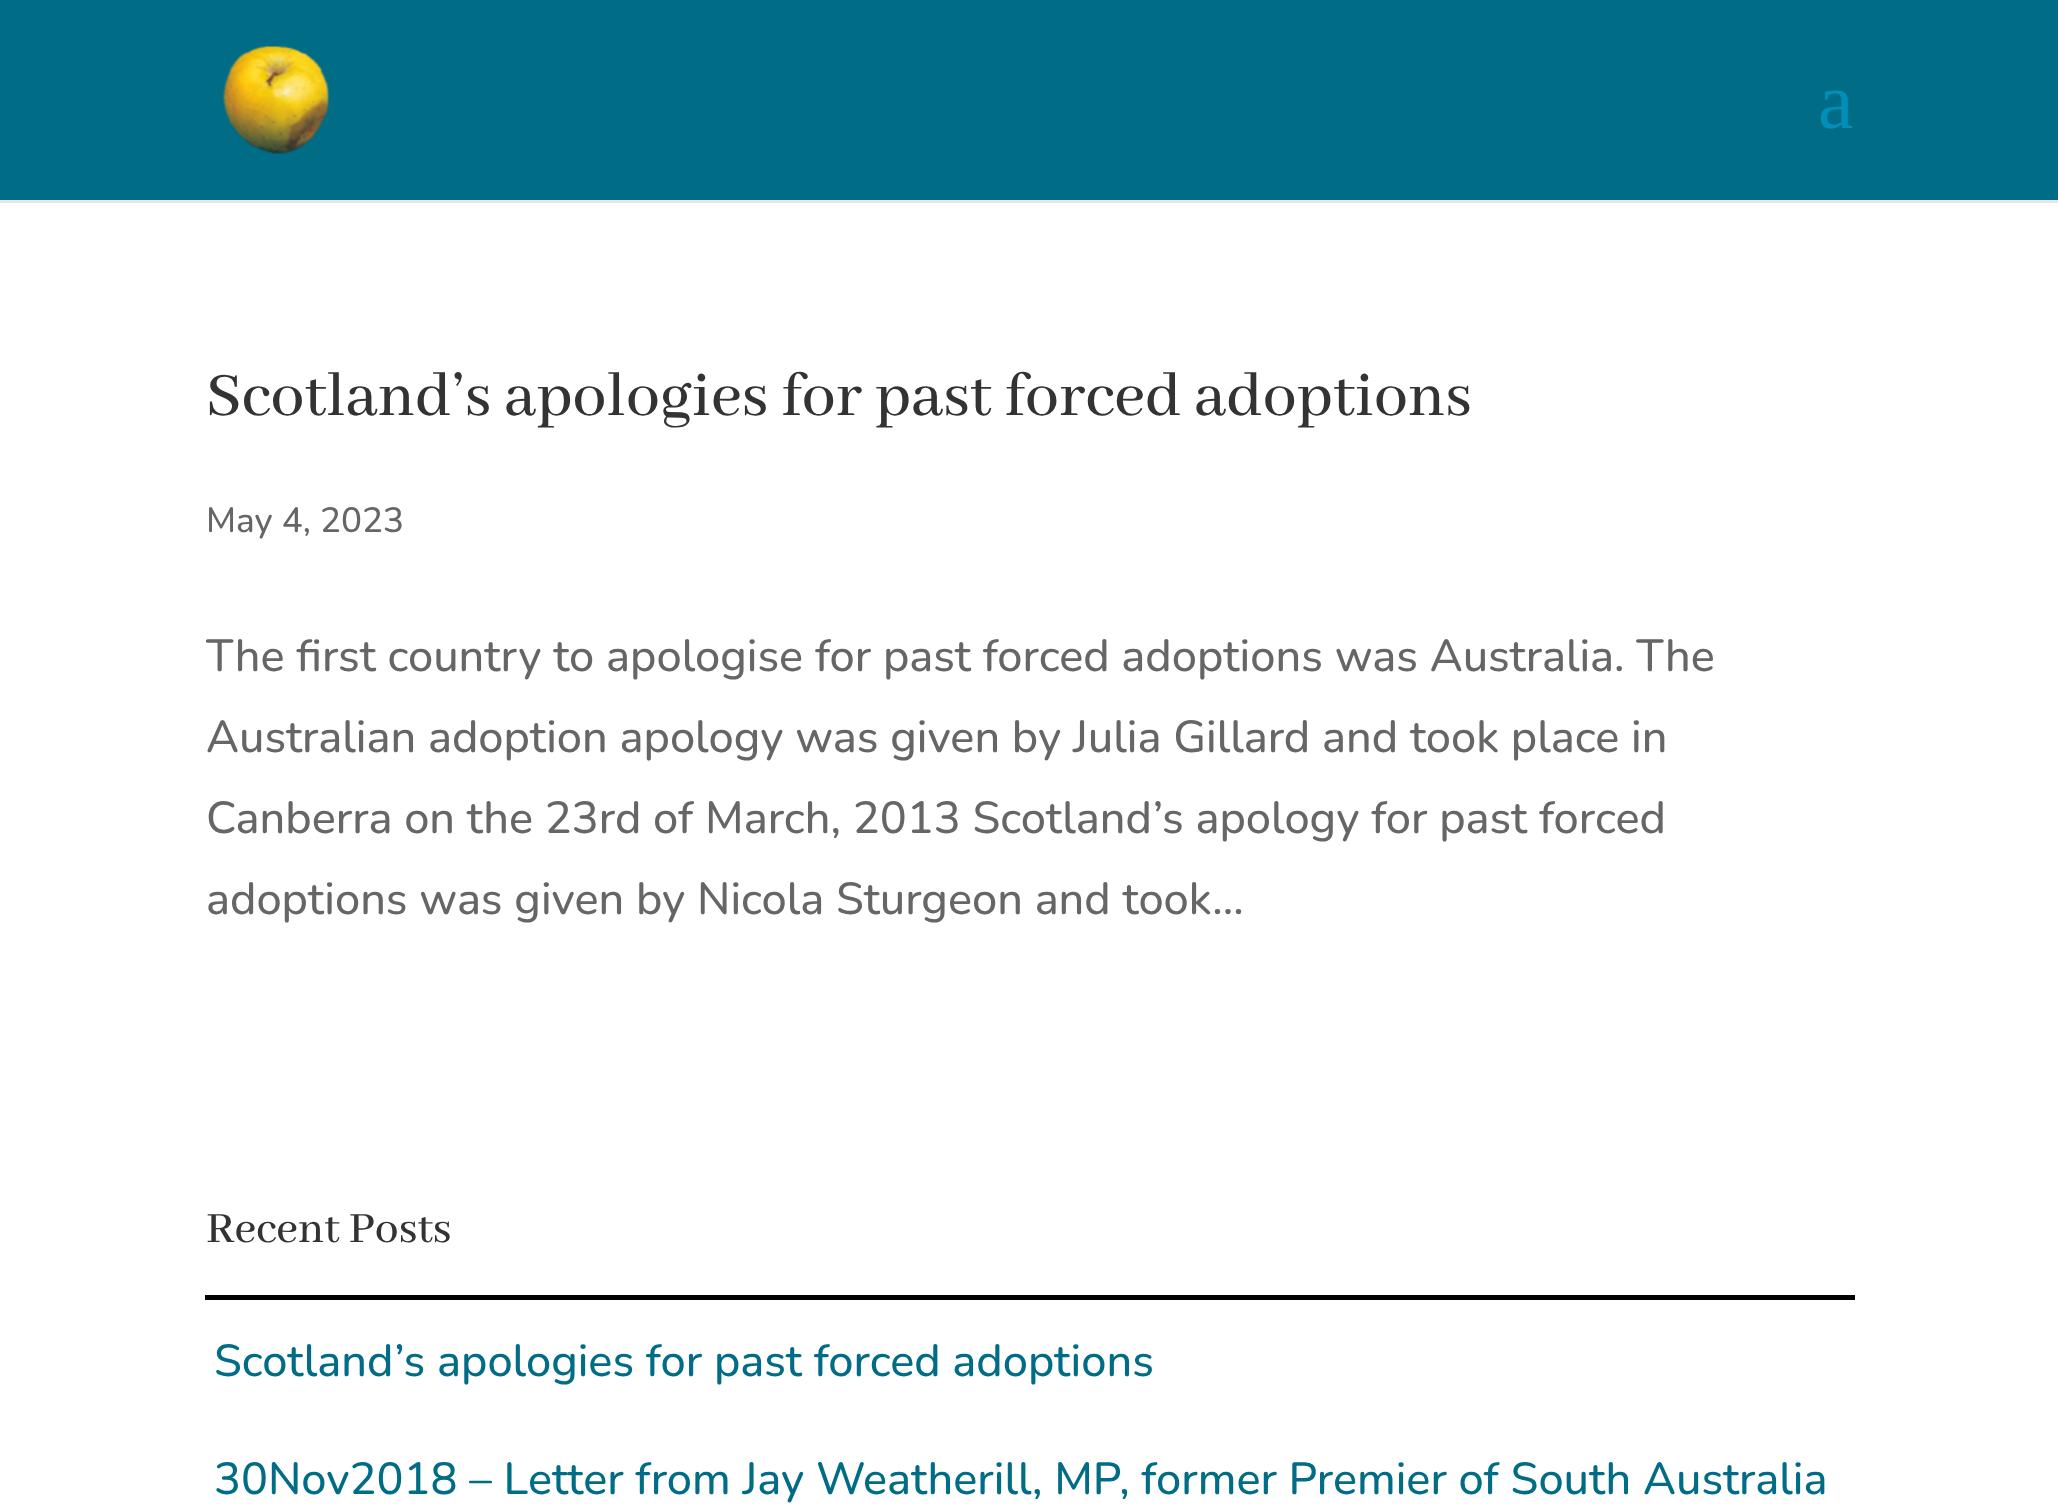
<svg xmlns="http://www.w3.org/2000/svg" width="2058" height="1506">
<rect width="100%" height="100%" fill="#fff"/>
<rect y="200" width="2058" height="3" fill="#e6e6e6"/>
<rect width="2058" height="200" fill="#006c85"/>
<image x="222" y="46" width="107" height="108" href="media/1.png"/>
<text x="1818" y="128" style="font-family:Liberation Serif;font-size:80px;fill:#018fba">a</text>
<text x="206" y="415" style="font-family:Abhaya Libre Medium;font-size:67.5px;font-weight:500;fill:#333">Scotland’s apologies for past forced adoptions</text>
<text x="206" y="532" style="font-family:Nunito;font-size:35px;font-weight:200;fill:#666">May 4, 2023</text>
<text x="206" y="671" style="font-family:Nunito;font-size:45px;font-weight:200;fill:#666">The first country to apologise for past forced adoptions was Australia. The</text>
<text x="206" y="752" style="font-family:Nunito;font-size:45px;font-weight:200;fill:#666">Australian adoption apology was given by Julia Gillard and took place in</text>
<text x="206" y="833" style="font-family:Nunito;font-size:45px;font-weight:200;fill:#666">Canberra on the 23rd of March, 2013 Scotland’s apology for past forced</text>
<text x="206" y="914" style="font-family:Nunito;font-size:45px;font-weight:200;fill:#666">adoptions was given by Nicola Sturgeon and took...</text>
<rect x="205" y="1295" width="1650" height="5" fill="#000"/>
<text x="206" y="1242" style="font-family:Abhaya Libre Medium;font-size:47.5px;font-weight:500;fill:#333">Recent Posts</text>
<text x="214" y="1376" style="font-family:Nunito;font-size:45px;font-weight:200;fill:#006c85">Scotland’s apologies for past forced adoptions</text>
<text x="214" y="1494" style="font-family:Nunito;font-size:45px;font-weight:200;fill:#006c85">30Nov2018 – Letter from Jay Weatherill, MP, former Premier of South Australia</text>
</svg>
